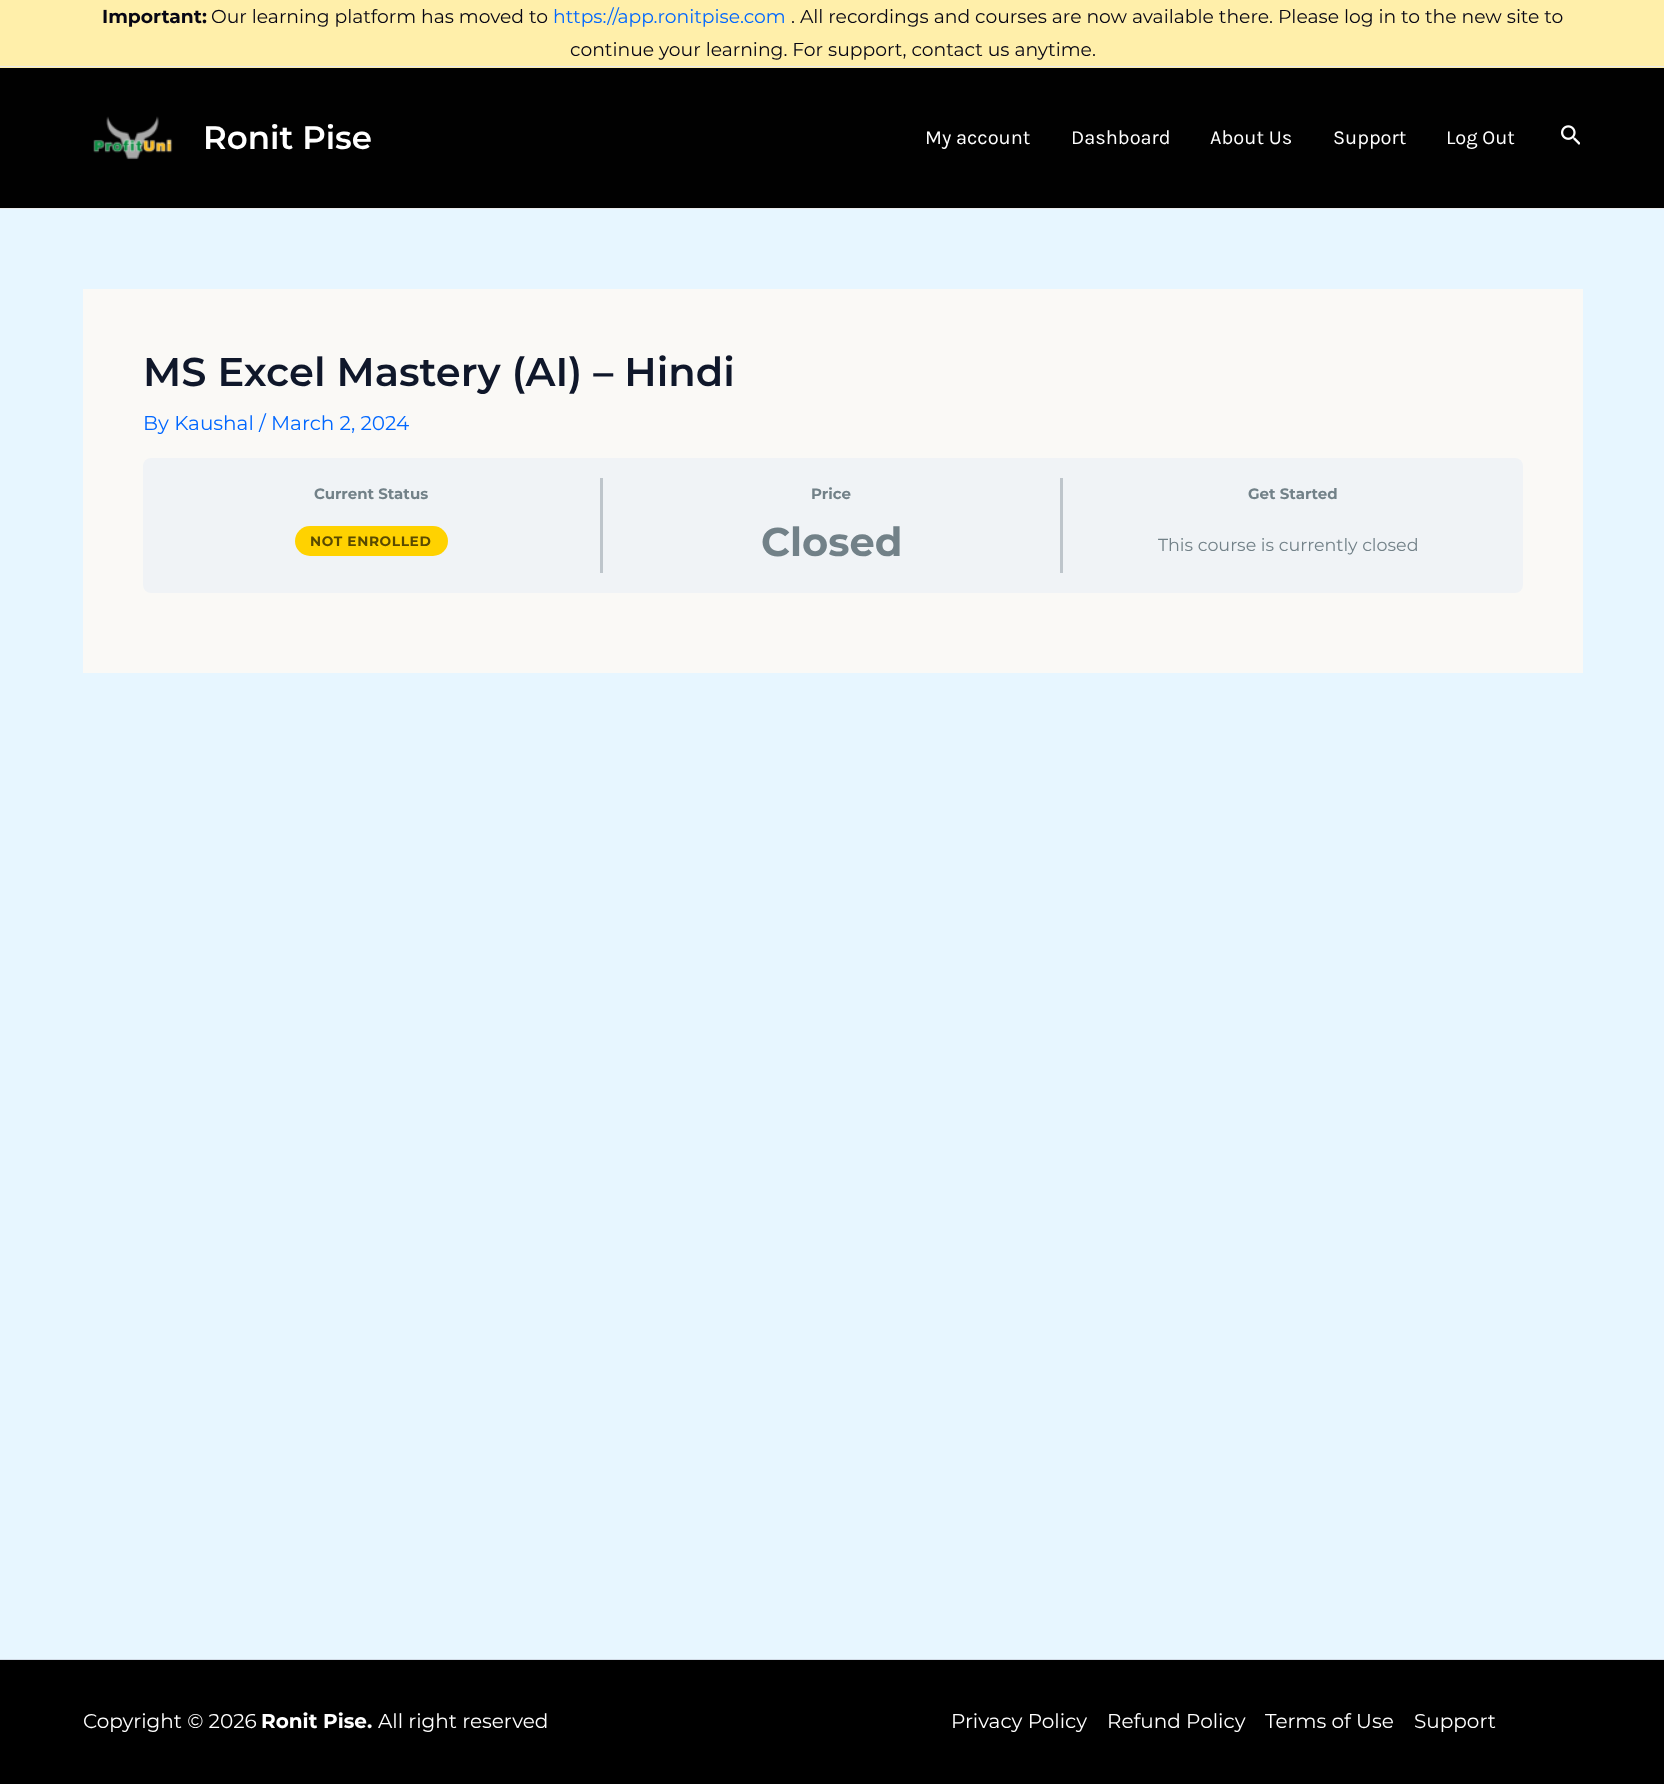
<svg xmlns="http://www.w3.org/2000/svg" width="1664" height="1784">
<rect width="100%" height="100%" fill="#e7f6ff"/>
<rect width="1664" height="68" fill="#ffefaa"/>
<rect y="66" width="1664" height="1" fill="#eaeaea"/>
<text x="102" y="23" style="font-family:Montserrat;font-size:18.75px;font-weight:bold;fill:#070614">Important:</text>
<text x="211" y="23" style="font-family:Montserrat;font-size:18.75px;fill:#070614">Our learning platform has moved to</text>
<text x="553" y="23" style="font-family:Montserrat;font-size:18.75px;fill:#0067ff">https://app.ronitpise.com</text>
<text x="791" y="23" style="font-family:Montserrat;font-size:18.75px;fill:#070614">. All recordings and courses are now available there. Please log in to the new site to</text>
<text x="570" y="56" style="font-family:Montserrat;font-size:18.75px;fill:#070614">continue your learning. For support, contact us anytime.</text>
<rect y="68" width="1664" height="140" fill="#010101"/>
<rect y="208" width="1664" height="1" fill="#eaeaea"/>
<image x="93" y="116" width="80" height="44" href="media/1.png"/>
<text x="203" y="149" style="font-family:Montserrat;font-size:32.5px;font-weight:600;fill:#fff">Ronit Pise</text>
<text x="925" y="144" style="font-family:Karla;font-size:20px;fill:#fff">My account</text>
<text x="1071" y="144" style="font-family:Karla;font-size:20px;fill:#fff">Dashboard</text>
<text x="1210" y="144" style="font-family:Karla;font-size:20px;fill:#fff">About Us</text>
<text x="1333" y="144" style="font-family:Karla;font-size:20px;fill:#fff">Support</text>
<text x="1446" y="144" style="font-family:Karla;font-size:20px;fill:#fff">Log Out</text>
<image x="1561" y="125" width="19" height="20" href="media/2.png"/>
<rect x="83" y="289" width="1500" height="384" fill="#faf9f6"/>
<text x="143" y="386" style="font-family:Montserrat;font-size:40px;font-weight:600;fill:#0f172a">MS Excel Mastery (AI) – Hindi</text>
<text x="143" y="430" style="font-family:Montserrat;font-size:20px;fill:#0067ff">By Kaushal / March 2, 2024</text>
<rect x="143" y="458" width="1380" height="135" rx="8" fill="#f0f3f6"/>
<rect x="600" y="478" width="3" height="95" fill="#bec5cb"/>
<text x="314" y="499" style="font-family:Montserrat;font-size:15px;font-weight:bold;fill:#728188">Current Status</text>
<rect x="295" y="526" width="153" height="30" rx="15" fill="#ffd200"/>
<text x="310" y="546" style="font-family:Montserrat;font-size:13.75px;font-weight:bold;letter-spacing:0.6px;fill:#594a00">NOT ENROLLED</text>
<rect x="1060" y="478" width="3" height="95" fill="#bec5cb"/>
<text x="811" y="499" style="font-family:Montserrat;font-size:15px;font-weight:bold;fill:#728188">Price</text>
<text x="761" y="556" style="font-family:Montserrat;font-size:40px;font-weight:bold;fill:#728188">Closed</text>
<text x="1248" y="499" style="font-family:Montserrat;font-size:15px;font-weight:bold;fill:#728188">Get Started</text>
<text x="1158" y="551" style="font-family:Montserrat;font-size:17.5px;fill:#728188">This course is currently closed</text>
<rect y="1660" width="1664" height="124" fill="#000"/>
<rect y="1659" width="1664" height="1" fill="#d1dae5"/>
<text x="83" y="1728" style="font-family:Montserrat;font-size:20px;fill:#fff">Copyright © 2026</text>
<text x="261" y="1728" style="font-family:Montserrat;font-size:20px;font-weight:bold;fill:#fff">Ronit Pise.</text>
<text x="378" y="1728" style="font-family:Montserrat;font-size:20px;fill:#fff">All right reserved</text>
<text x="951" y="1728" style="font-family:Montserrat;font-size:20px;fill:#fff">Privacy Policy</text>
<text x="1107" y="1728" style="font-family:Montserrat;font-size:20px;fill:#fff">Refund Policy</text>
<text x="1265" y="1728" style="font-family:Montserrat;font-size:20px;fill:#fff">Terms of Use</text>
<text x="1414" y="1728" style="font-family:Montserrat;font-size:20px;fill:#fff">Support</text>
</svg>
